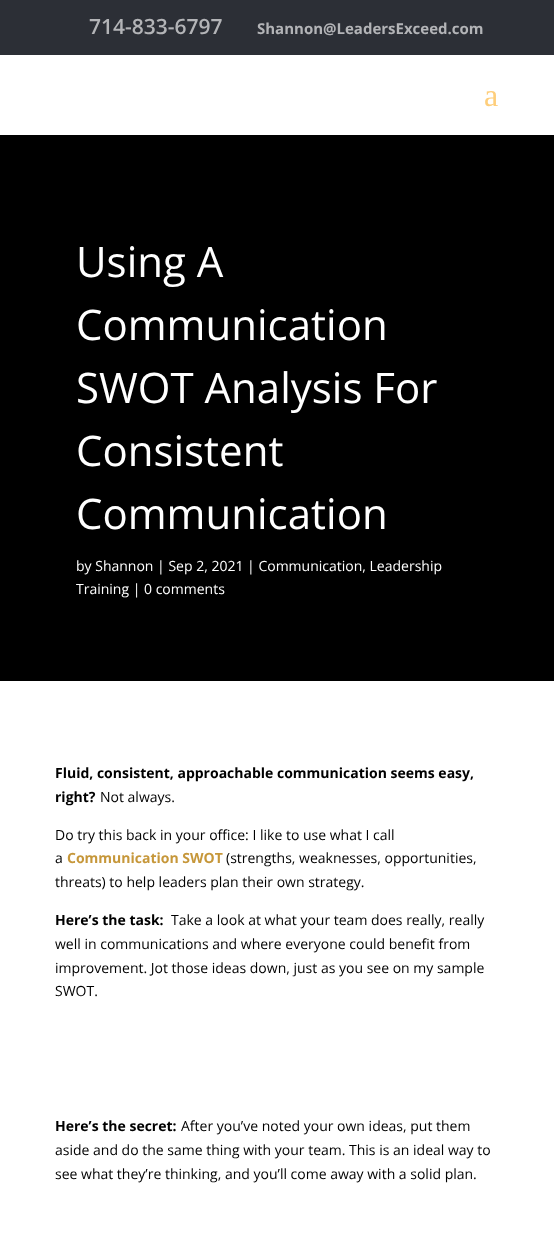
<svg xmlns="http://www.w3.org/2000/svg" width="554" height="1258">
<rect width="100%" height="100%" fill="#fff"/>
<rect width="554" height="55" fill="#2c2f36"/>
<text x="89" y="34" style="font-family:Open Sans;font-size:21px;font-weight:600;fill:#b3b4b7">714-833-6797</text>
<text x="257" y="34" style="font-family:Open Sans;font-size:15px;font-weight:bold;fill:#b3b4b7">Shannon@LeadersExceed.com</text>
<text x="484" y="106" style="font-family:Liberation Serif;font-size:32px;fill:#fece7b">a</text>
<rect y="135" width="554" height="546" fill="#000"/>
<text x="76" y="277" style="font-family:Open Sans;font-size:42px;fill:#fff">Using A</text>
<text x="76" y="340" style="font-family:Open Sans;font-size:42px;fill:#fff">Communication</text>
<text x="76" y="403" style="font-family:Open Sans;font-size:42px;fill:#fff">SWOT Analysis For</text>
<text x="76" y="466" style="font-family:Open Sans;font-size:42px;fill:#fff">Consistent</text>
<text x="76" y="529" style="font-family:Open Sans;font-size:42px;fill:#fff">Communication</text>
<text x="76" y="571" style="font-family:Open Sans;font-size:14px;fill:#fff">by Shannon | Sep 2, 2021 | Communication, Leadership</text>
<text x="76" y="594" style="font-family:Open Sans;font-size:14px;fill:#fff">Training | 0 comments</text>
<text x="55" y="778" style="font-family:Open Sans;font-size:14px;font-weight:bold;fill:#000">Fluid, consistent, approachable communication seems easy,</text>
<text x="55" y="802" style="font-family:Open Sans;font-size:14px;font-weight:bold;fill:#000">right?</text>
<text x="100" y="802" style="font-family:Open Sans;font-size:14px;fill:#000">Not always.</text>
<text x="55" y="840" style="font-family:Open Sans;font-size:14px;fill:#000">Do try this back in your office: I like to use what I call</text>
<text x="55" y="863" style="font-family:Open Sans;font-size:14px;fill:#000">a</text>
<text x="67" y="863" style="font-family:Open Sans;font-size:14px;font-weight:bold;fill:#c6973a">Communication SWOT</text>
<text x="226" y="863" style="font-family:Open Sans;font-size:14px;fill:#000">(strengths, weaknesses, opportunities,</text>
<text x="55" y="887" style="font-family:Open Sans;font-size:14px;fill:#000">threats) to help leaders plan their own strategy.</text>
<text x="55" y="925" style="font-family:Open Sans;font-size:14px;font-weight:bold;fill:#000">Here’s the task:</text>
<text x="171" y="925" style="font-family:Open Sans;font-size:14px;fill:#000">Take a look at what your team does really, really</text>
<text x="55" y="949" style="font-family:Open Sans;font-size:14px;fill:#000">well in communications and where everyone could benefit from</text>
<text x="55" y="973" style="font-family:Open Sans;font-size:14px;fill:#000">improvement. Jot those ideas down, just as you see on my sample</text>
<text x="55" y="996" style="font-family:Open Sans;font-size:14px;fill:#000">SWOT.</text>
<text x="55" y="1131" style="font-family:Open Sans;font-size:14px;font-weight:bold;fill:#000">Here’s the secret:</text>
<text x="181" y="1131" style="font-family:Open Sans;font-size:14px;fill:#000">After you’ve noted your own ideas, put them</text>
<text x="55" y="1155" style="font-family:Open Sans;font-size:14px;fill:#000">aside and do the same thing with your team. This is an ideal way to</text>
<text x="55" y="1179" style="font-family:Open Sans;font-size:14px;fill:#000">see what they’re thinking, and you’ll come away with a solid plan.</text>
</svg>
